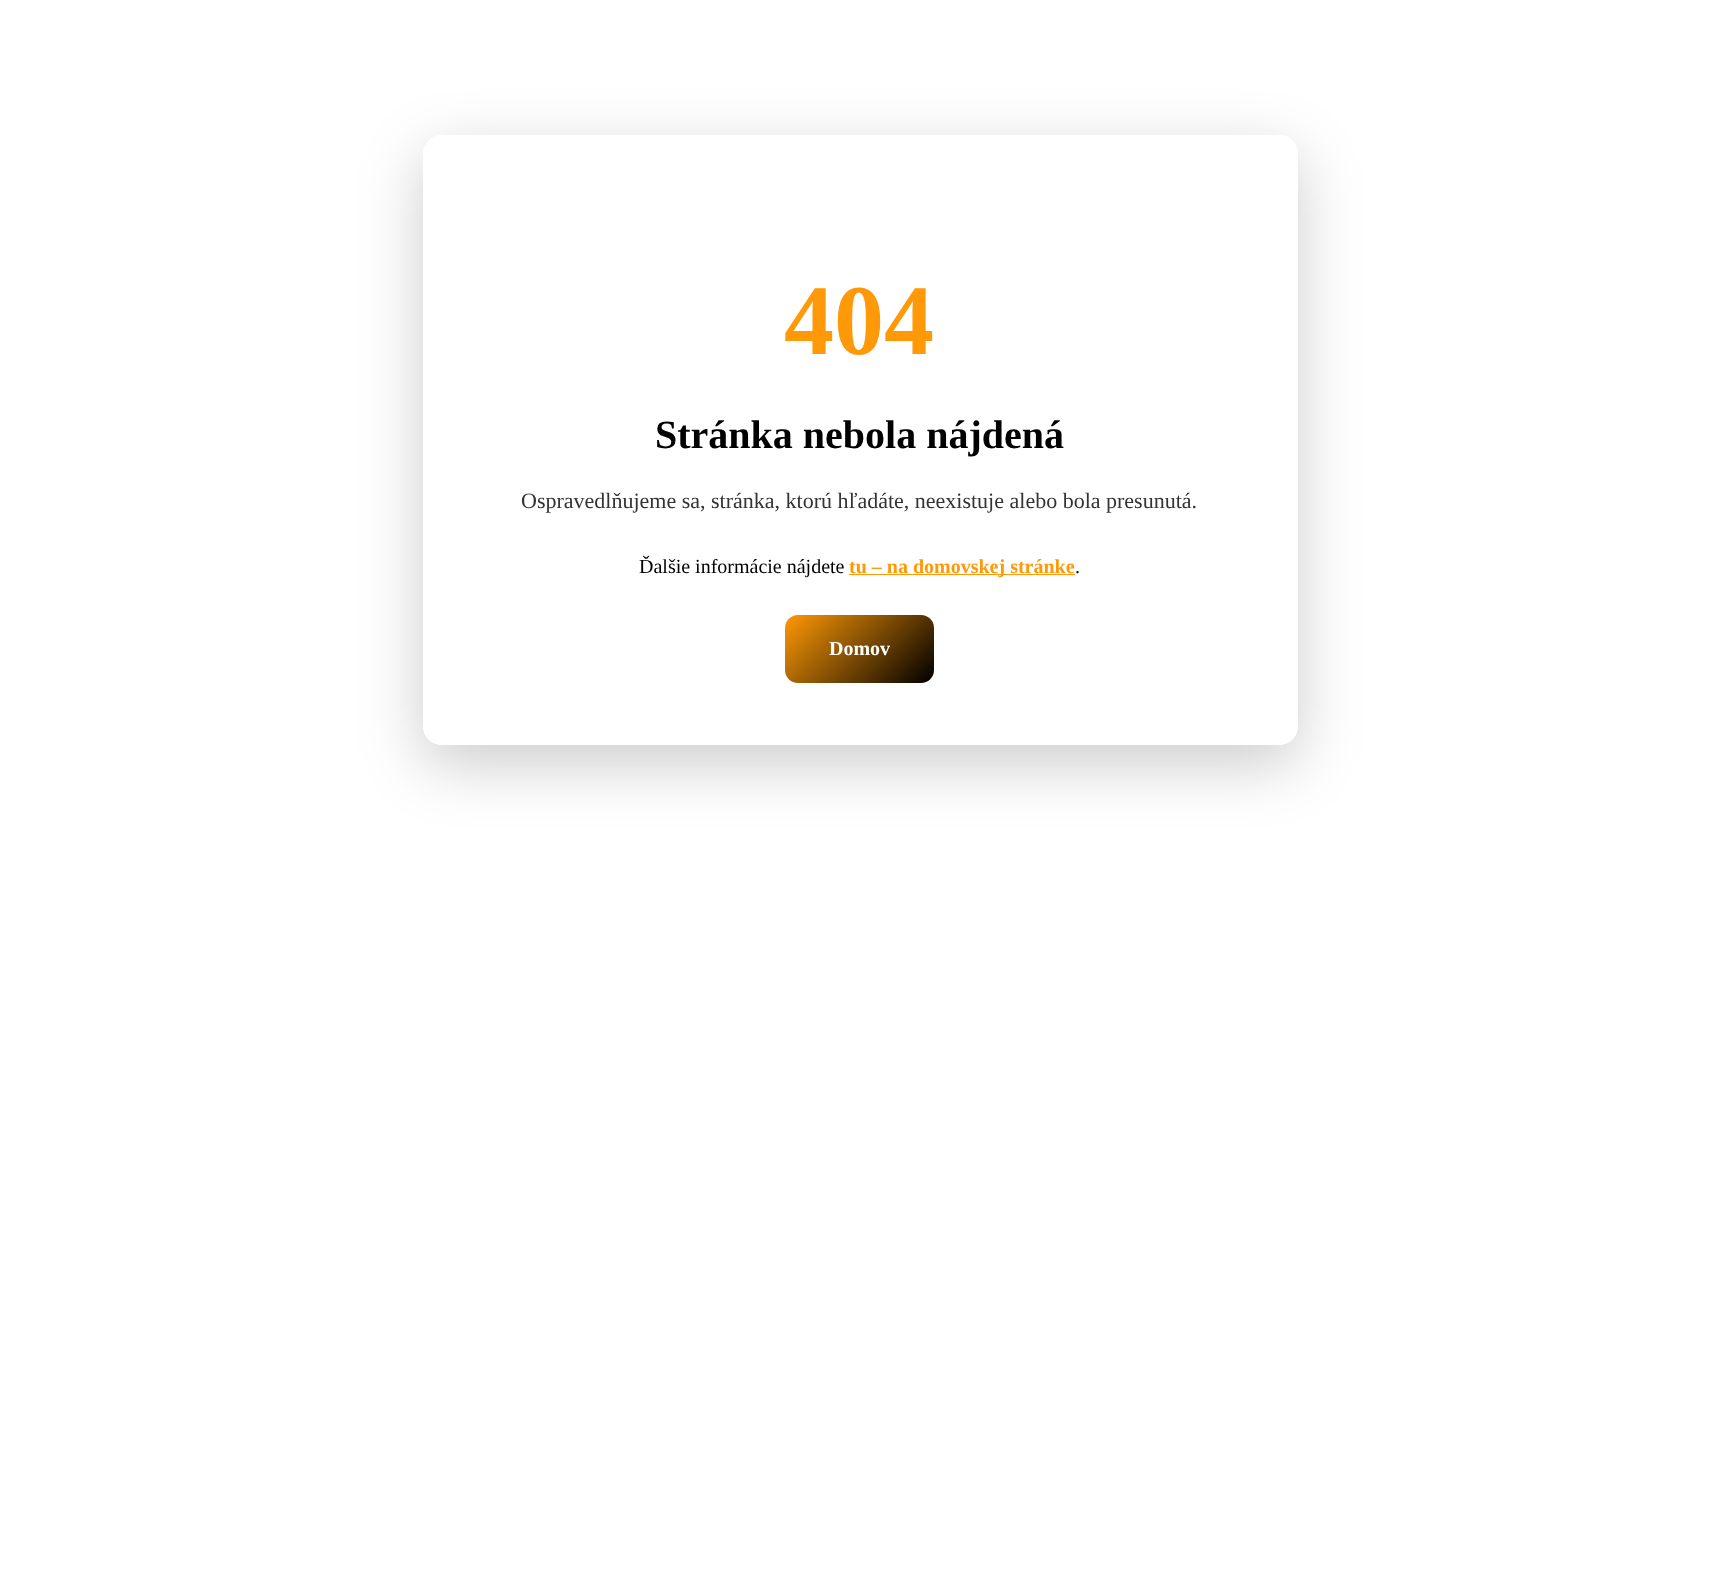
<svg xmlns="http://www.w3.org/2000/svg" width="1718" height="1589">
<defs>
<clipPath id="clip1"><path d="M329 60h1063v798h-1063zm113 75h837c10.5 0 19 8.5 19 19v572c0 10.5-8.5 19-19 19h-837c-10.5 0-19-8.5-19-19v-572c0-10.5 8.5-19 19-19z" clip-rule="evenodd"/></clipPath>
<linearGradient id="g1" gradientUnits="userSpaceOnUse" x1="805" y1="595" x2="913" y2="703"><stop offset="0" stop-color="#ff9907"/><stop offset="1" stop-color="#000"/></linearGradient>
</defs>
<rect width="100%" height="100%" fill="#fff"/>
<g clip-path="url(#clip1)">
<rect x="423" y="154" width="875" height="610" rx="19" fill="#00000033" filter="blur(31px)"/>
</g>
<rect x="423" y="135" width="875" height="610" rx="19" fill="#fffffff2"/>
<text x="784" y="354" style="font-family:Liberation Serif;font-size:100px;font-weight:bold;fill:#ff9907">404</text>
<text x="655" y="448" style="font-family:Liberation Serif;font-size:40px;font-weight:bold;fill:#000">Stránka nebola nájdená</text>
<text x="521" y="508" style="font-family:Liberation Serif;font-size:22px;fill:#333">Ospravedlňujeme sa, stránka, ktorú hľadáte, neexistuje alebo bola presunutá.</text>
<text x="639" y="573" style="font-family:Liberation Serif;font-size:20px;fill:#000">Ďalšie informácie nájdete</text>
<rect x="849" y="574" width="226" height="1" fill="#ff9907"/>
<text x="849" y="573" style="font-family:Liberation Serif;font-size:20px;font-weight:bold;fill:#ff9907">tu – na domovskej stránke</text>
<text x="1075" y="573" style="font-family:Liberation Serif;font-size:20px;fill:#000">.</text>
<rect x="785" y="615" width="149" height="68" rx="13" fill="url(#g1)"/>
<text x="829" y="655" style="font-family:Liberation Serif;font-size:20px;font-weight:bold;fill:#fff">Domov</text>
</svg>
